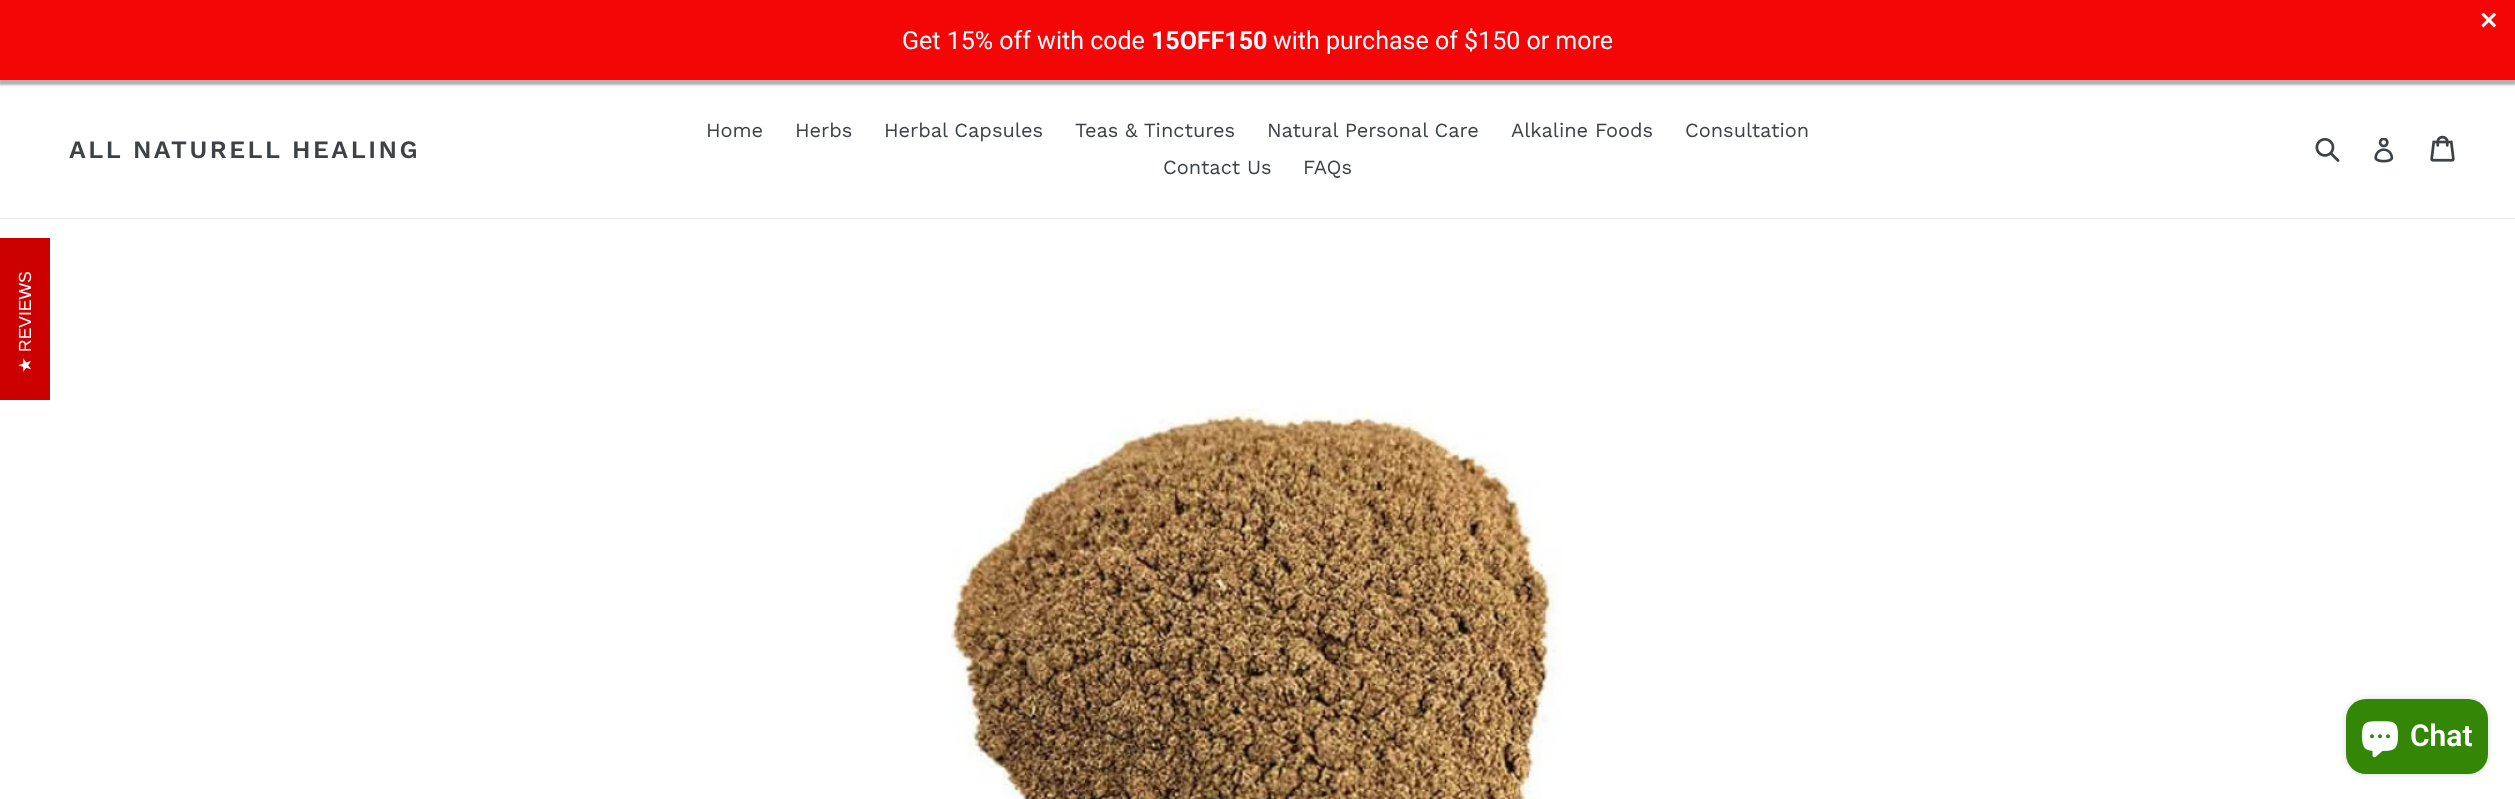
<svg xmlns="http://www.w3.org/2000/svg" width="2515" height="799">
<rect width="100%" height="100%" fill="#fff"/>
<rect x="-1" y="3" width="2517" height="82" fill="#0000004d" filter="blur(1px)"/>
<rect width="2515" height="80" fill="#f40606"/>
<image x="2481" y="13" width="15" height="15" href="media/1.png"/>
<text x="902" y="49" style="font-family:Roboto;font-size:25px;fill:#fff">Get 15% off with code</text>
<text x="1151" y="49" style="font-family:Roboto;font-size:25px;font-weight:bold;fill:#fff">15OFF150</text>
<text x="1273" y="49" style="font-family:Roboto;font-size:25px;fill:#fff">with purchase of $150 or more</text>
<rect y="218" width="2515" height="1" fill="#e8e9eb"/>
<text x="69" y="158" style="font-family:Work Sans;font-size:25px;font-weight:600;letter-spacing:2.5px;fill:#3d4246">ALL NATURELL HEALING</text>
<text x="706" y="137" style="font-family:Work Sans;font-size:20px;fill:#3d4246">Home</text>
<text x="795" y="137" style="font-family:Work Sans;font-size:20px;fill:#3d4246">Herbs</text>
<text x="884" y="137" style="font-family:Work Sans;font-size:20px;fill:#3d4246">Herbal Capsules</text>
<text x="1075" y="137" style="font-family:Work Sans;font-size:20px;fill:#3d4246">Teas &amp; Tinctures</text>
<text x="1267" y="137" style="font-family:Work Sans;font-size:20px;fill:#3d4246">Natural Personal Care</text>
<text x="1511" y="137" style="font-family:Work Sans;font-size:20px;fill:#3d4246">Alkaline Foods</text>
<text x="1685" y="137" style="font-family:Work Sans;font-size:20px;fill:#3d4246">Consultation</text>
<text x="1163" y="174" style="font-family:Work Sans;font-size:20px;fill:#3d4246">Contact Us</text>
<text x="1303" y="174" style="font-family:Work Sans;font-size:20px;fill:#3d4246">FAQs</text>
<image x="2315" y="138" width="25" height="24" href="media/2.png"/>
<image x="2374" y="138" width="20" height="25" href="media/3.png"/>
<image x="2430" y="135" width="25" height="27" href="media/4.png"/>
<rect y="238" width="50" height="162" fill="#c00"/>
<text x="31" y="352" transform="rotate(-90 31 352)" style="font-family:Liberation Sans;font-size:17.5px;fill:#fff">REVIEWS</text>
<text x="31" y="373" transform="rotate(-90 31 373)" style="font-family:DejaVu Sans;font-size:17.5px;fill:#fff">★</text>
<image x="945" y="407" width="618" height="392" href="media/5.png"/>
<rect x="2346" y="699" width="142" height="75" rx="20" fill="#00000026" filter="blur(3px)"/>
<rect x="2346" y="699" width="142" height="75" rx="20" fill="#348606"/>
<image x="2362" y="721" width="36" height="37" href="media/6.png"/>
<text x="2410" y="746" style="font-family:Roboto;font-size:30px;font-weight:600;fill:#fff">Chat</text>
</svg>
